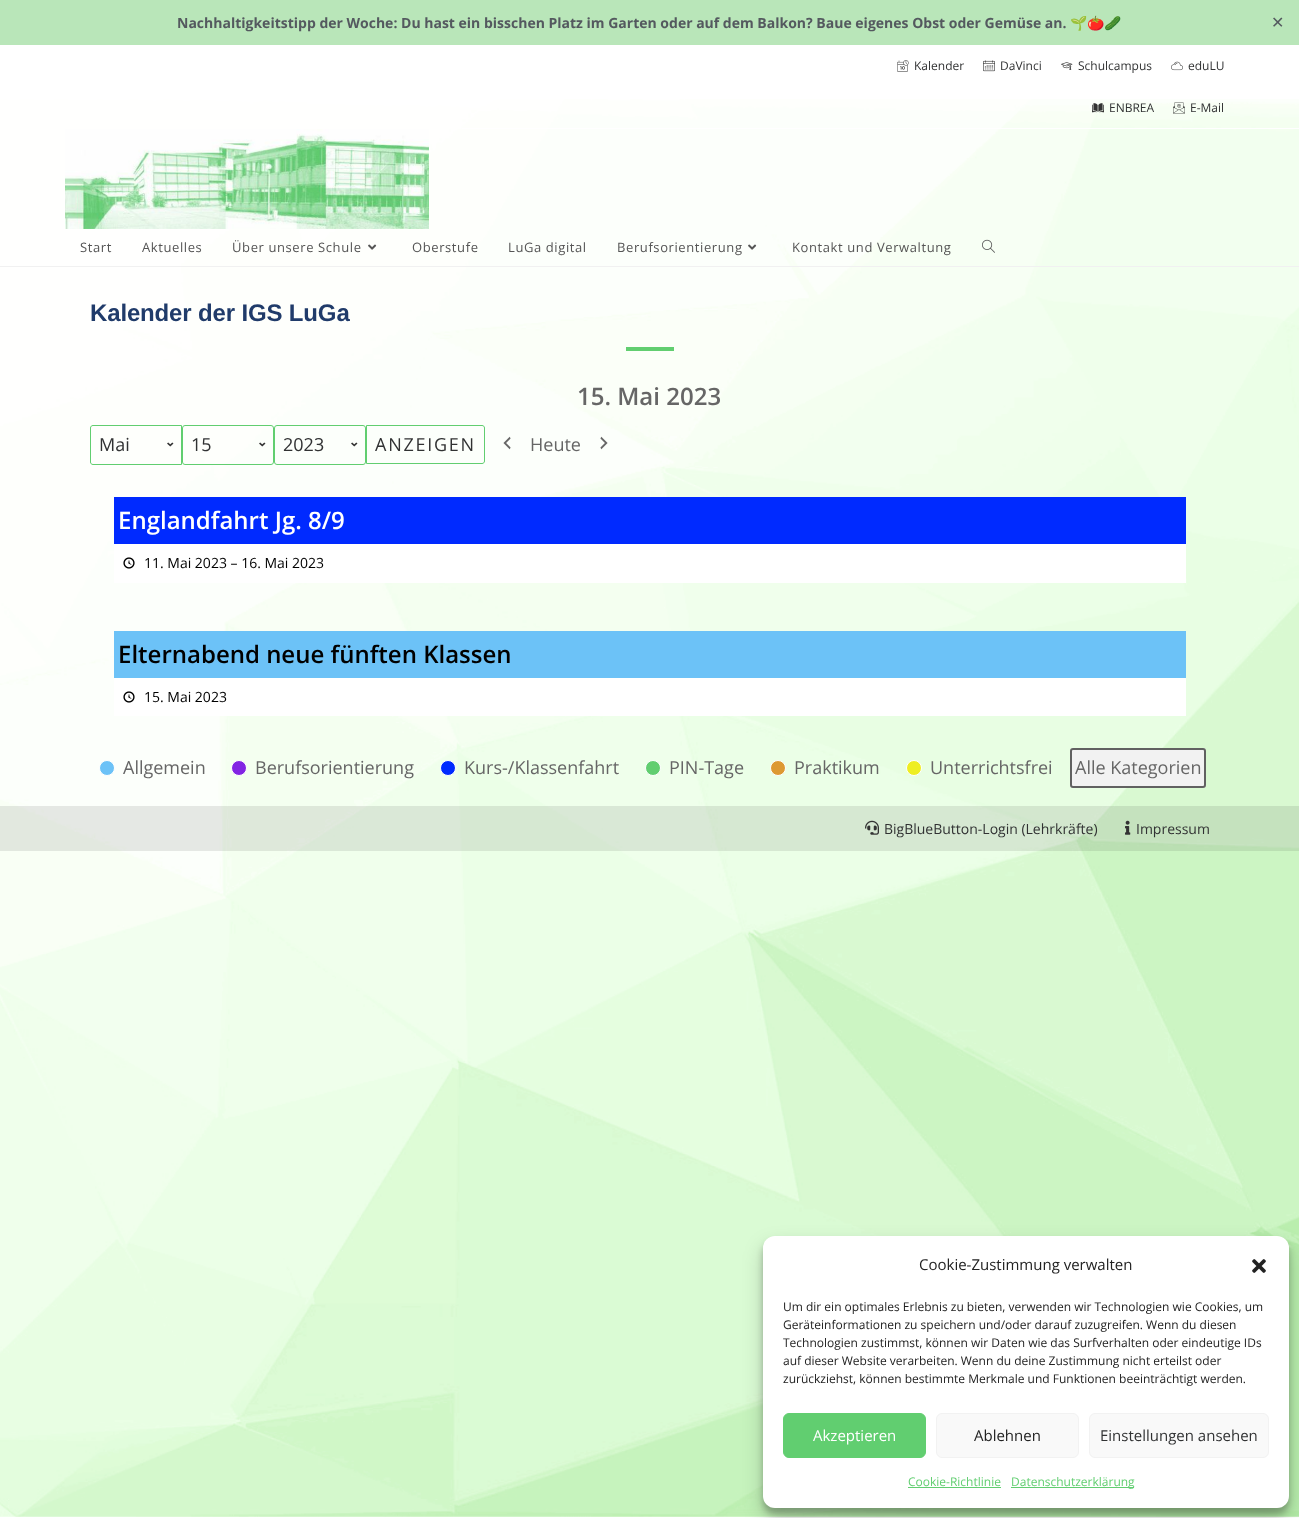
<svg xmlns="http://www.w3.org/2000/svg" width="1299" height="1518">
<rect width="100%" height="100%" fill="#fff"/>
<image x="0" y="99" width="1299" height="1418" href="media/1.png"/>
<rect width="1299" height="45" fill="#b9e6b9"/>
<text x="177" y="28" style="font-family:Open Sans;font-size:14px;font-weight:bold;fill:#54595f">Nachhaltigkeitstipp der Woche: Du hast ein bisschen Platz im Garten oder auf dem Balkon? Baue eigenes Obst oder Gemüse an.</text>
<text x="1070" y="28" style="font-family:Noto Color Emoji;font-size:14px;font-weight:bold;fill:#54595f">🌱🍅🥒</text>
<text x="1271" y="28" style="font-family:DejaVu Sans;font-size:16px;fill:#54595f">✕</text>
<rect x="462" y="128" width="837" height="1" fill="#fff"/>
<image x="897" y="60" width="12" height="12" href="media/2.png"/>
<text x="914" y="70" style="font-family:Open Sans;font-size:12px;fill:#313233">Kalender</text>
<image x="983" y="60" width="12" height="12" href="media/3.png"/>
<text x="1000" y="70" style="font-family:Open Sans;font-size:12px;fill:#313233">DaVinci</text>
<image x="1061" y="62" width="12" height="8" href="media/4.png"/>
<text x="1078" y="70" style="font-family:Open Sans;font-size:12px;fill:#313233">Schulcampus</text>
<image x="1171" y="61" width="12" height="10" href="media/5.png"/>
<text x="1188" y="70" style="font-family:Open Sans;font-size:12px;fill:#313233">eduLU</text>
<image x="1092" y="103" width="12" height="10" href="media/6.png"/>
<text x="1109" y="112" style="font-family:Open Sans;font-size:12px;fill:#313233">ENBREA</text>
<image x="1173" y="102" width="12" height="12" href="media/7.png"/>
<text x="1190" y="112" style="font-family:Open Sans;font-size:12px;fill:#313233">E-Mail</text>
<rect y="266" width="1299" height="1" fill="#f1f1f1"/>
<image x="65" y="129" width="364" height="100" href="media/8.png"/>
<text x="80" y="252" style="font-family:Open Sans;font-size:13px;letter-spacing:0.6px;fill:#555">Start</text>
<text x="142" y="252" style="font-family:Open Sans;font-size:13px;letter-spacing:0.6px;fill:#555">Aktuelles</text>
<text x="232" y="252" style="font-family:Open Sans;font-size:13px;letter-spacing:0.6px;fill:#555">Über unsere Schule</text>
<image x="368" y="244" width="9" height="6" href="media/9.png"/>
<text x="412" y="252" style="font-family:Open Sans;font-size:13px;letter-spacing:0.6px;fill:#555">Oberstufe</text>
<text x="508" y="252" style="font-family:Open Sans;font-size:13px;letter-spacing:0.6px;fill:#555">LuGa digital</text>
<text x="617" y="252" style="font-family:Open Sans;font-size:13px;letter-spacing:0.6px;fill:#555">Berufsorientierung</text>
<image x="748" y="244" width="9" height="6" href="media/10.png"/>
<text x="792" y="252" style="font-family:Open Sans;font-size:13px;letter-spacing:0.6px;fill:#555">Kontakt und Verwaltung</text>
<image x="982" y="239" width="13" height="14" href="media/11.png"/>
<text x="90" y="321" style="font-family:Liberation Sans;font-size:24px;font-weight:bold;letter-spacing:-0.15px;fill:#203b6a">Kalender der IGS LuGa</text>
<rect x="626" y="347" width="48" height="4" fill="#61ce70"/>
<text x="577" y="405" style="font-family:Open Sans;font-size:24px;font-weight:600;fill:#666">15. Mai 2023</text>
<image x="167" y="442" width="7" height="5" href="media/12.png"/>
<path d="M93 425.5h88.5v39h-88.5c-1.5 0-2.5-1-2.5-2.5v-34c0-1.5 1-2.5 2.5-2.5z" fill="none" stroke="#61ce70"/>
<text x="99" y="451" style="font-family:Open Sans;font-size:18px;fill:#313233">Mai</text>
<image x="259" y="442" width="7" height="5" href="media/13.png"/>
<rect x="182.5" y="425.5" width="91" height="39" rx="2.5" fill="none" stroke="#61ce70"/>
<text x="191" y="451" style="font-family:Open Sans;font-size:18px;fill:#313233">15</text>
<image x="351" y="442" width="7" height="5" href="media/13.png"/>
<rect x="274.5" y="425.5" width="91" height="39" rx="2.5" fill="none" stroke="#61ce70"/>
<text x="283" y="451" style="font-family:Open Sans;font-size:18px;fill:#313233">2023</text>
<path d="M366.5 425.5h115.5c1.5 0 2.5 1 2.5 2.5v33c0 1.5-1 2.5-2.5 2.5h-115.5z" fill="none" stroke="#61ce70"/>
<text x="375" y="451" style="font-family:Open Sans;font-size:18px;letter-spacing:1.75px;fill:#313233">ANZEIGEN</text>
<image x="503" y="436" width="8" height="14" href="media/14.png"/>
<text x="530" y="451" style="font-family:Open Sans;font-size:18px;fill:#666">Heute</text>
<image x="600" y="436" width="8" height="14" href="media/15.png"/>
<rect x="114" y="497" width="1072" height="47" fill="#002aff"/>
<text x="118" y="529" style="font-family:Open Sans;font-size:24px;font-weight:600;fill:#fff">Englandfahrt Jg. 8/9</text>
<rect x="114" y="544" width="1072" height="39" fill="#fff"/>
<image x="123" y="557" width="12" height="12" href="media/16.png"/>
<text x="144" y="568" style="font-family:Open Sans;font-size:14px;fill:#000">11. Mai 2023 – 16. Mai 2023</text>
<rect x="114" y="631" width="1072" height="47" fill="#6cc2f7"/>
<text x="118" y="663" style="font-family:Open Sans;font-size:24px;font-weight:600;fill:#000">Elternabend neue fünften Klassen</text>
<rect x="114" y="678" width="1072" height="38" fill="#fff"/>
<image x="123" y="691" width="12" height="12" href="media/16.png"/>
<text x="144" y="702" style="font-family:Open Sans;font-size:14px;fill:#000">15. Mai 2023</text>
<circle cx="107" cy="768" r="7.5" fill="#6cc2f7" stroke="#fff"/>
<text x="123" y="774" style="font-family:Open Sans;font-size:18px;fill:#666">Allgemein</text>
<circle cx="239" cy="768" r="7.5" fill="#8224e3" stroke="#fff"/>
<text x="255" y="774" style="font-family:Open Sans;font-size:18px;fill:#666">Berufsorientierung</text>
<circle cx="448" cy="768" r="7.5" fill="#002aff" stroke="#fff"/>
<text x="464" y="774" style="font-family:Open Sans;font-size:18px;fill:#666">Kurs-/Klassenfahrt</text>
<circle cx="653" cy="768" r="7.5" fill="#61ce70" stroke="#fff"/>
<text x="669" y="774" style="font-family:Open Sans;font-size:18px;fill:#666">PIN-Tage</text>
<circle cx="778" cy="768" r="7.5" fill="#d93" stroke="#fff"/>
<text x="794" y="774" style="font-family:Open Sans;font-size:18px;fill:#666">Praktikum</text>
<circle cx="914" cy="768" r="7.5" fill="#ee2" stroke="#fff"/>
<text x="930" y="774" style="font-family:Open Sans;font-size:18px;fill:#666">Unterrichtsfrei</text>
<rect x="1070" y="748" width="136" height="40" rx="3" fill="#f2f2f2"/>
<rect x="1071" y="749" width="134" height="38" rx="2" fill="none" stroke="#616161" stroke-width="2"/>
<text x="1075" y="774" style="font-family:Open Sans;font-size:18px;fill:#666">Alle Kategorien</text>
<rect y="806" width="1299" height="45" fill="#2222221a"/>
<image x="865" y="820" width="14" height="15" href="media/17.png"/>
<text x="884" y="834" style="font-family:Open Sans;font-size:14px;fill:#313233">BigBlueButton-Login (Lehrkräfte)</text>
<image x="1125" y="820" width="6" height="15" href="media/18.png"/>
<text x="1136" y="834" style="font-family:Open Sans;font-size:14px;fill:#313233">Impressum</text>
<rect x="763" y="1242" width="526" height="272" rx="12" fill="#0000003b" filter="blur(3px)"/>
<rect x="763" y="1246" width="526" height="272" rx="12" fill="#00000030" filter="blur(10px)"/>
<rect x="763" y="1236" width="526" height="272" rx="12" fill="#fff"/>
<text x="919" y="1270" style="font-family:Open Sans;font-size:15px;fill:#222">Cookie-Zustimmung verwalten</text>
<image x="1252" y="1259" width="14" height="14" href="media/19.png"/>
<text x="783" y="1311" style="font-family:Open Sans;font-size:12px;fill:#222">Um dir ein optimales Erlebnis zu bieten, verwenden wir Technologien wie Cookies, um</text>
<text x="783" y="1329" style="font-family:Open Sans;font-size:12px;fill:#222">Geräteinformationen zu speichern und/oder darauf zuzugreifen. Wenn du diesen</text>
<text x="783" y="1347" style="font-family:Open Sans;font-size:12px;fill:#222">Technologien zustimmst, können wir Daten wie das Surfverhalten oder eindeutige IDs</text>
<text x="783" y="1365" style="font-family:Open Sans;font-size:12px;fill:#222">auf dieser Website verarbeiten. Wenn du deine Zustimmung nicht erteilst oder</text>
<text x="783" y="1383" style="font-family:Open Sans;font-size:12px;fill:#222">zurückziehst, können bestimmte Merkmale und Funktionen beeinträchtigt werden.</text>
<rect x="783.5" y="1413.5" width="142" height="44" rx="5.5" fill="#61ce70" stroke="#61ce70"/>
<text x="813" y="1441" style="font-family:Open Sans;font-size:15px;fill:#fff">Akzeptieren</text>
<rect x="936.5" y="1413.5" width="142" height="44" rx="5.5" fill="#f9f9f9" stroke="#f2f2f2"/>
<text x="974" y="1441" style="font-family:Open Sans;font-size:15px;fill:#222">Ablehnen</text>
<rect x="1089.5" y="1413.5" width="179" height="44" rx="5.5" fill="#f9f9f9" stroke="#f2f2f2"/>
<text x="1100" y="1441" style="font-family:Open Sans;font-size:15px;fill:#313233">Einstellungen ansehen</text>
<text x="908" y="1486" style="font-family:Open Sans;font-size:12px;fill:#61ce70">Cookie-Richtlinie</text>
<rect x="908" y="1487" width="93" height="1" fill="#61ce70"/>
<rect x="1011" y="1487" width="123" height="1" fill="#61ce70"/>
<text x="1011" y="1486" style="font-family:Open Sans;font-size:12px;fill:#61ce70">Datenschutzerklärung</text>
</svg>
